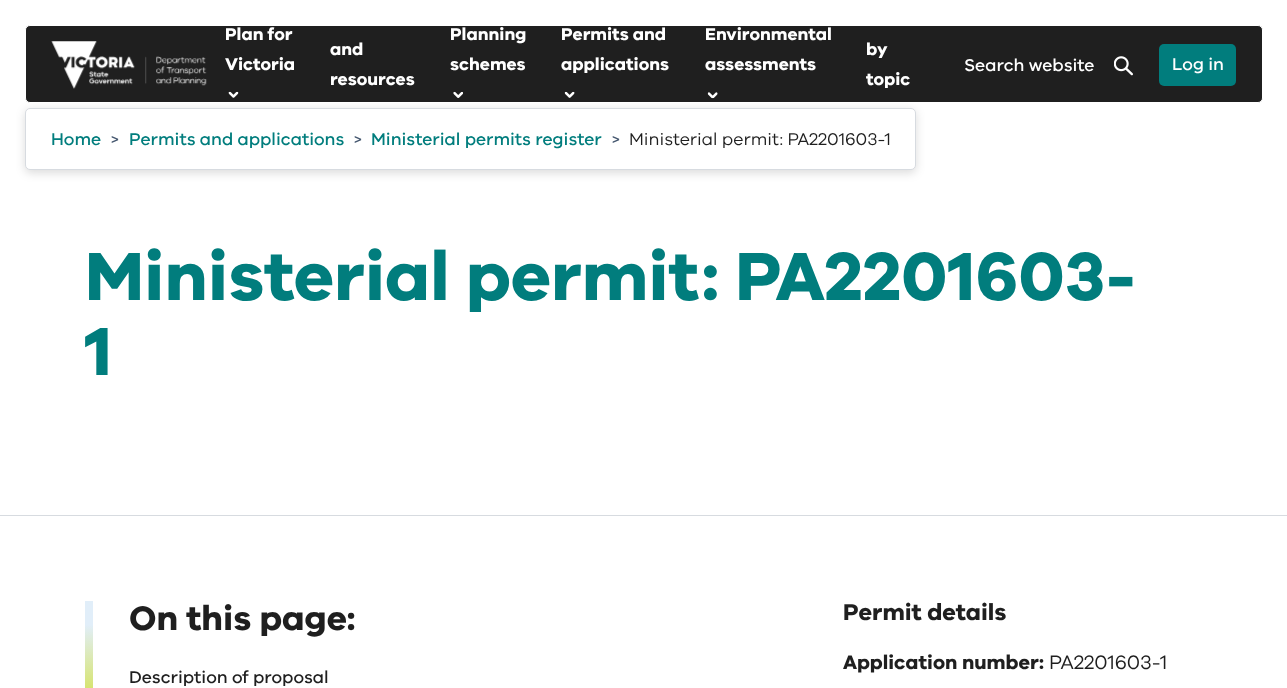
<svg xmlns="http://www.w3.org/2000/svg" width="1287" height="688">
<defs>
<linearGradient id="g1" gradientUnits="userSpaceOnUse" x1="89" y1="601" x2="89" y2="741"><stop offset="0.17" stop-color="#e1eef9"/><stop offset="1" stop-color="#cedc00"/></linearGradient>
</defs>
<rect width="100%" height="100%" fill="#fff"/>
<rect x="25" y="110" width="891" height="63" rx="5" fill="#00000024" filter="blur(5px)"/>
<rect x="25.5" y="25.5" width="1237" height="77" rx="4.5" fill="#1f1f1f" stroke="#fff"/>
<image x="51" y="41" width="156" height="48" href="media/1.png"/>
<text x="225" y="40" style="font-family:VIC;font-size:17.5px;font-weight:bold;fill:#fff">Plan for</text>
<text x="225" y="70" style="font-family:VIC;font-size:17.5px;font-weight:bold;fill:#fff">Victoria</text>
<image x="228" y="91" width="11" height="7" href="media/2.png"/>
<text x="330" y="55" style="font-family:VIC;font-size:17.5px;font-weight:bold;fill:#fff">and</text>
<text x="330" y="85" style="font-family:VIC;font-size:17.5px;font-weight:bold;fill:#fff">resources</text>
<text x="450" y="40" style="font-family:VIC;font-size:17.5px;font-weight:bold;fill:#fff">Planning</text>
<text x="450" y="70" style="font-family:VIC;font-size:17.5px;font-weight:bold;fill:#fff">schemes</text>
<image x="453" y="91" width="10" height="7" href="media/3.png"/>
<text x="561" y="40" style="font-family:VIC;font-size:17.5px;font-weight:bold;fill:#fff">Permits and</text>
<text x="561" y="70" style="font-family:VIC;font-size:17.5px;font-weight:bold;fill:#fff">applications</text>
<image x="564" y="91" width="11" height="7" href="media/4.png"/>
<text x="705" y="40" style="font-family:VIC;font-size:17.5px;font-weight:bold;fill:#fff">Environmental</text>
<text x="705" y="70" style="font-family:VIC;font-size:17.5px;font-weight:bold;fill:#fff">assessments</text>
<image x="707" y="92" width="11" height="7" href="media/5.png"/>
<text x="866" y="55" style="font-family:VIC;font-size:17.5px;font-weight:bold;fill:#fff">by</text>
<text x="866" y="85" style="font-family:VIC;font-size:17.5px;font-weight:bold;fill:#fff">topic</text>
<text x="964" y="71" style="font-family:VIC;font-size:17.5px;font-weight:500;fill:#fff">Search website</text>
<image x="1114" y="56" width="19" height="20" href="media/6.png"/>
<rect x="1159" y="44" width="77" height="42" rx="5" fill="#017d7d"/>
<text x="1172" y="70" style="font-family:VIC;font-size:17.5px;font-weight:500;fill:#fff">Log in</text>
<rect x="25.5" y="108.5" width="890" height="61" rx="4.5" fill="#fff" stroke="#d7dbe0"/>
<text x="51" y="145" style="font-family:VIC;font-size:17.5px;font-weight:500;fill:#017d7d">Home</text>
<text x="111" y="145" style="font-family:VIC;font-size:17.5px;fill:#465870">&gt;</text>
<text x="129" y="145" style="font-family:VIC;font-size:17.5px;font-weight:500;fill:#017d7d">Permits and applications</text>
<text x="354" y="145" style="font-family:VIC;font-size:17.5px;fill:#465870">&gt;</text>
<text x="371" y="145" style="font-family:VIC;font-size:17.5px;font-weight:500;fill:#017d7d">Ministerial permits register</text>
<text x="612" y="145" style="font-family:VIC;font-size:17.5px;fill:#465870">&gt;</text>
<text x="629" y="145" style="font-family:VIC;font-size:17.5px;fill:#1f1f1f">Ministerial permit: PA2201603-1</text>
<rect y="515" width="1287" height="1" fill="#d7dbe0"/>
<text x="85" y="300" style="font-family:VIC;font-size:70px;font-weight:bold;fill:#017d7d">Ministerial permit: PA2201603-</text>
<text x="85" y="375" style="font-family:VIC;font-size:70px;font-weight:bold;fill:#017d7d">1</text>
<rect x="85" y="601" width="8" height="87" fill="url(#g1)"/>
<text x="129" y="630" style="font-family:VIC;font-size:35px;font-weight:bold;fill:#1f1f1f">On this page:</text>
<text x="129" y="683" style="font-family:VIC;font-size:17.5px;font-weight:500;fill:#1f1f1f">Description of proposal</text>
<text x="843" y="620" style="font-family:VIC;font-size:23.5px;font-weight:bold;fill:#1f1f1f">Permit details</text>
<text x="843" y="669" style="font-family:VIC;font-size:20px;font-weight:bold;fill:#1f1f1f">Application number:</text>
<text x="1049" y="669" style="font-family:VIC;font-size:20px;fill:#1f1f1f">PA2201603-1</text>
</svg>
